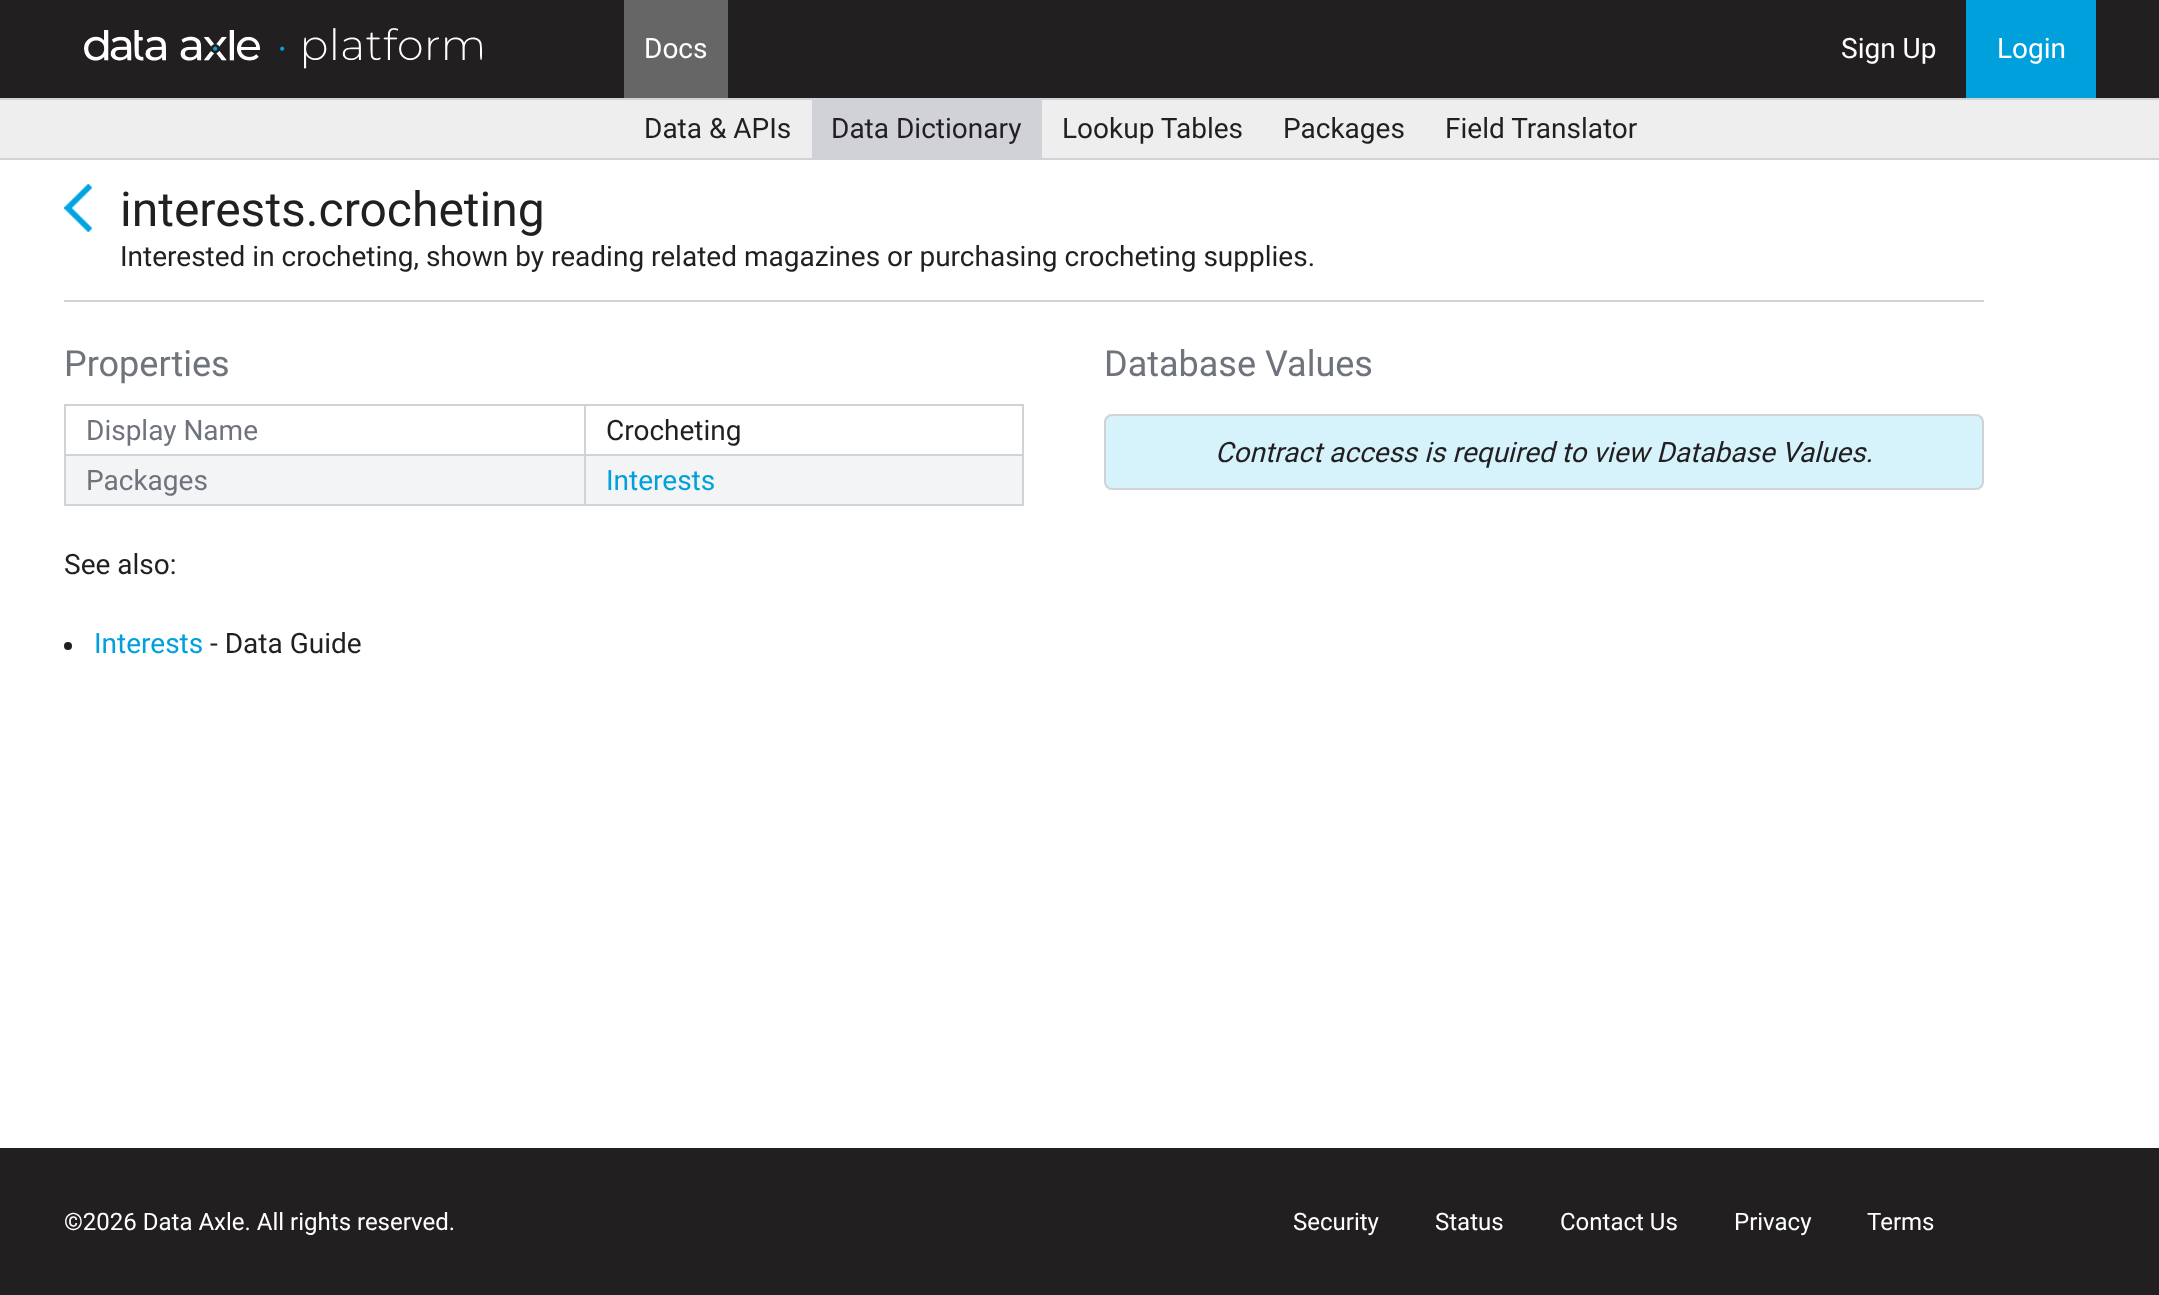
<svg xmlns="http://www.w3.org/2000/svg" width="2159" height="1295">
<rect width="100%" height="100%" fill="#fff"/>
<rect width="2159" height="98" fill="#221f20"/>
<rect y="98" width="2159" height="2" fill="#d0d2d7"/>
<image x="84" y="28" width="398" height="41" href="media/1.png"/>
<rect x="624" width="104" height="98" fill="#666"/>
<text x="644" y="58" style="font-family:Roboto;font-size:28px;fill:#fff">Docs</text>
<text x="1841" y="58" style="font-family:Roboto;font-size:28px;fill:#fff">Sign Up</text>
<rect x="1966" width="130" height="98" fill="#00a0dc"/>
<text x="1997" y="58" style="font-family:Roboto;font-size:28px;fill:#fff">Login</text>
<rect y="100" width="2159" height="58" fill="#eee"/>
<rect y="158" width="2159" height="2" fill="#d0d2d7"/>
<text x="644" y="138" style="font-family:Roboto;font-size:28px;fill:#221f20">Data &amp; APIs</text>
<rect x="812" y="100" width="230" height="58" fill="#d0d2d7"/>
<text x="831" y="138" style="font-family:Roboto;font-size:28px;fill:#221f20">Data Dictionary</text>
<text x="1062" y="138" style="font-family:Roboto;font-size:28px;fill:#221f20">Lookup Tables</text>
<text x="1283" y="138" style="font-family:Roboto;font-size:28px;fill:#221f20">Packages</text>
<text x="1445" y="138" style="font-family:Roboto;font-size:28px;fill:#221f20">Field Translator</text>
<rect x="64" y="300" width="1920" height="2" fill="#d0d2d7"/>
<image x="64" y="184" width="28" height="48" href="media/2.png"/>
<text x="120" y="226" style="font-family:Roboto;font-size:48px;fill:#221f20">interests.crocheting</text>
<text x="120" y="266" style="font-family:Roboto;font-size:28px;fill:#221f20">Interested in crocheting, shown by reading related magazines or purchasing crocheting supplies.</text>
<text x="64" y="376" style="font-family:Roboto;font-size:36px;fill:#6f737c">Properties</text>
<rect x="584" y="404" width="440" height="2" fill="#d0d2d7"/>
<rect x="584" y="454" width="440" height="2" fill="#d0d2d7"/>
<rect x="66" y="456" width="956" height="48" fill="#f3f4f5"/>
<rect x="1022" y="454" width="2" height="52" fill="#d0d2d7"/>
<rect x="584" y="504" width="440" height="2" fill="#d0d2d7"/>
<rect x="584" y="454" width="2" height="52" fill="#d0d2d7"/>
<rect x="64" y="454" width="522" height="2" fill="#d0d2d7"/>
<rect x="584" y="404" width="2" height="52" fill="#d0d2d7"/>
<rect x="64" y="404" width="522" height="2" fill="#d0d2d7"/>
<rect x="64" y="504" width="522" height="2" fill="#d0d2d7"/>
<rect x="64" y="454" width="2" height="52" fill="#d0d2d7"/>
<rect x="64" y="404" width="2" height="52" fill="#d0d2d7"/>
<text x="86" y="440" style="font-family:Roboto;font-size:28px;fill:#6f737c">Display Name</text>
<rect x="1022" y="404" width="2" height="52" fill="#d0d2d7"/>
<text x="606" y="440" style="font-family:Roboto;font-size:28px;fill:#221f20">Crocheting</text>
<text x="86" y="490" style="font-family:Roboto;font-size:28px;fill:#6f737c">Packages</text>
<text x="606" y="490" style="font-family:Roboto;font-size:28px;fill:#00a0dc">Interests</text>
<text x="64" y="574" style="font-family:Roboto;font-size:28px;fill:#221f20">See also:</text>
<circle cx="68" cy="646" r="4" fill="#221f20"/>
<text x="94" y="653" style="font-family:Roboto;font-size:28px;fill:#00a0dc">Interests</text>
<text x="210" y="653" style="font-family:Roboto;font-size:28px;fill:#221f20">- Data Guide</text>
<text x="1104" y="376" style="font-family:Roboto;font-size:36px;fill:#6f737c">Database Values</text>
<rect x="1105" y="415" width="878" height="74" rx="7" fill="#d6f2fb" stroke="#d0d2d7" stroke-width="2"/>
<text x="1215" y="462" style="font-family:Roboto;font-size:28px;font-style:italic;fill:#221f20">Contract access is required to view Database Values.</text>
<rect y="1148" width="2159" height="147" fill="#221f20"/>
<text x="64" y="1230" style="font-family:Roboto;font-size:24px;fill:#fff">©2026 Data Axle. All rights reserved.</text>
<text x="1293" y="1230" style="font-family:Roboto;font-size:24px;fill:#fff">Security</text>
<text x="1435" y="1230" style="font-family:Roboto;font-size:24px;fill:#fff">Status</text>
<text x="1560" y="1230" style="font-family:Roboto;font-size:24px;fill:#fff">Contact Us</text>
<text x="1734" y="1230" style="font-family:Roboto;font-size:24px;fill:#fff">Privacy</text>
<text x="1867" y="1230" style="font-family:Roboto;font-size:24px;fill:#fff">Terms</text>
</svg>
